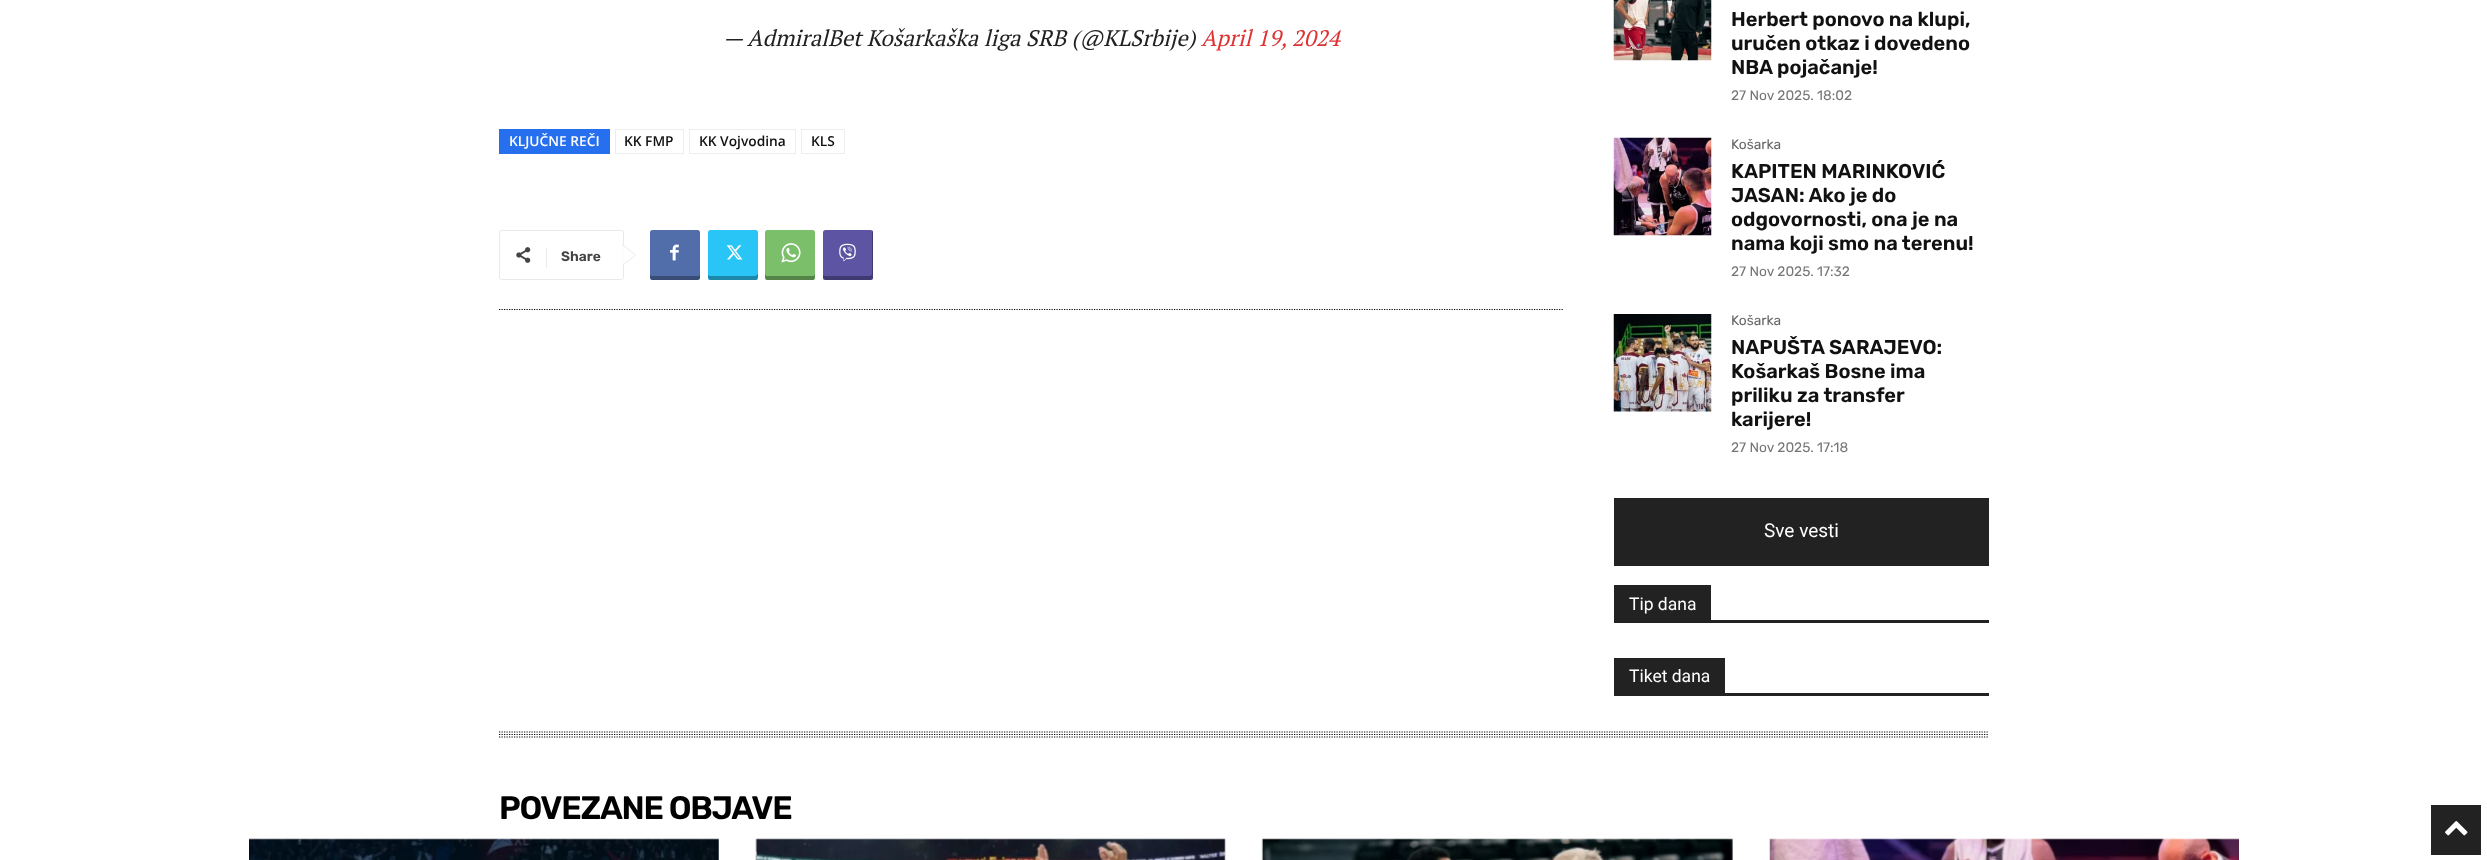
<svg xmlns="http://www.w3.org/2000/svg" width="2487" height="860">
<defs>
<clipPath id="clip1"><rect x="650" y="230" width="50" height="50"/></clipPath>
<clipPath id="clip2"><rect x="708" y="230" width="50" height="50"/></clipPath>
<clipPath id="clip3"><rect x="765" y="230" width="50" height="50"/></clipPath>
</defs>
<rect width="100%" height="100%" fill="#fff"/>
<text x="723" y="46" style="font-family:PT Serif;font-size:22.5px;font-style:italic;fill:#222">— AdmiralBet Košarkaška liga SRB (@KLSrbije)</text>
<text x="1201" y="46" style="font-family:PT Serif;font-size:22.5px;font-style:italic;fill:#d33">April 19, 2024</text>
<rect x="499" y="129" width="111" height="25" fill="#266fef"/>
<text x="509" y="146" style="font-family:Open Sans;font-size:13.75px;font-weight:600;fill:#fff">KLJUČNE REČI</text>
<rect x="615.5" y="129.5" width="68" height="24" fill="none" stroke="#ededed"/>
<text x="624" y="146" style="font-family:Open Sans;font-size:13.75px;font-weight:600;fill:#111">KK FMP</text>
<rect x="689.5" y="129.5" width="106" height="24" fill="none" stroke="#ededed"/>
<text x="699" y="146" style="font-family:Open Sans;font-size:13.75px;font-weight:600;fill:#111">KK Vojvodina</text>
<rect x="801.5" y="129.5" width="43" height="24" fill="none" stroke="#ededed"/>
<text x="811" y="146" style="font-family:Open Sans;font-size:13.75px;font-weight:600;fill:#111">KLS</text>
<rect x="499.5" y="230.5" width="124" height="49" rx="2" fill="none" stroke="#e9e9e9"/>
<path d="M622.5 266v-22l13.5 11z" fill="#e9e9e9"/>
<image x="516" y="247" width="15" height="16" href="media/1.png"/>
<rect x="546" y="248" width="1" height="20" fill="#ebebeb"/>
<text x="561" y="261" style="font-family:Rubik;font-size:13.75px;font-weight:600;fill:#444">Share</text>
<path d="M622.5 265v-20l12.5 10z" fill="#fff"/>
<rect x="650" y="230" width="50" height="50" rx="2.5" fill="#516eab"/>
<g clip-path="url(#clip1)">
<path d="M650 274c0 8 1 6 10 6h30c9 0 10 2 10-6l-1 2h-47c-1 0-2-1-2-2z" fill="#0000004f"/>
</g>
<image x="670" y="244" width="9" height="17" href="media/2.png"/>
<rect x="708" y="230" width="50" height="50" rx="2.5" fill="#29c5f6"/>
<g clip-path="url(#clip2)">
<path d="M708 274c0 8 1 6 10 6h30c9 0 10 2 10-6l-1 1l-2 1h-45c-1 0-2-1-2-2z" fill="#0000004f"/>
</g>
<image x="726" y="245" width="17" height="15" href="media/3.png"/>
<rect x="765" y="230" width="50" height="50" rx="2.5" fill="#7bbf6a"/>
<g clip-path="url(#clip3)">
<path d="M765 274c0 8 1 6 10 6h30c9 0 10 2 10-6l-1 2c-2 0-46 0-48 0z" fill="#0000004f"/>
</g>
<image x="781" y="243" width="20" height="20" href="media/4.png"/>
<rect x="823" y="230" width="50" height="50" rx="2.5" fill="#5d54a4"/>
<path d="M823 275v3c0 1 1 2 3 2h44c2 0 3-1 3-2v-46c0 0 0-1-1-2v44c0 1-1 2-2 2h-45z" fill="#0000004f"/>
<image x="839" y="243" width="17" height="19" href="media/5.png"/>
<path d="M499 309.5h1065" fill="none" stroke="#0a0a0a" stroke-width="1.2" stroke-dasharray="1.25 1.25"/>
<image x="1613" y="0" width="99" height="61" href="media/6.png"/>
<text x="1731" y="26" style="font-family:Rubik;font-size:20px;font-weight:600;fill:#111">Herbert ponovo na klupi,</text>
<text x="1731" y="50" style="font-family:Rubik;font-size:20px;font-weight:600;fill:#111">uručen otkaz i dovedeno</text>
<text x="1731" y="74" style="font-family:Rubik;font-size:20px;font-weight:600;fill:#111">NBA pojačanje!</text>
<text x="1731" y="100" style="font-family:Rubik;font-size:13.75px;fill:#767676">27 Nov 2025. 18:02</text>
<image x="1613" y="137" width="99" height="99" href="media/7.png"/>
<text x="1731" y="149" style="font-family:Rubik;font-size:13.75px;fill:#666">Košarka</text>
<text x="1731" y="178" style="font-family:Rubik;font-size:20px;font-weight:600;fill:#111">KAPITEN MARINKOVIĆ</text>
<text x="1731" y="202" style="font-family:Rubik;font-size:20px;font-weight:600;fill:#111">JASAN: Ako je do</text>
<text x="1731" y="226" style="font-family:Rubik;font-size:20px;font-weight:600;fill:#111">odgovornosti, ona je na</text>
<text x="1731" y="250" style="font-family:Rubik;font-size:20px;font-weight:600;fill:#111">nama koji smo na terenu!</text>
<text x="1731" y="276" style="font-family:Rubik;font-size:13.75px;fill:#767676">27 Nov 2025. 17:32</text>
<image x="1613" y="314" width="99" height="98" href="media/8.png"/>
<text x="1731" y="325" style="font-family:Rubik;font-size:13.75px;fill:#666">Košarka</text>
<text x="1731" y="354" style="font-family:Rubik;font-size:20px;font-weight:600;fill:#111">NAPUŠTA SARAJEVO:</text>
<text x="1731" y="378" style="font-family:Rubik;font-size:20px;font-weight:600;fill:#111">Košarkaš Bosne ima</text>
<text x="1731" y="402" style="font-family:Rubik;font-size:20px;font-weight:600;fill:#111">priliku za transfer</text>
<text x="1731" y="426" style="font-family:Rubik;font-size:20px;font-weight:600;fill:#111">karijere!</text>
<text x="1731" y="452" style="font-family:Rubik;font-size:13.75px;fill:#767676">27 Nov 2025. 17:18</text>
<rect x="1614" y="498" width="375" height="68" fill="#222"/>
<text x="1764" y="537" style="font-family:Roboto;font-size:19px;fill:#fff">Sve vesti</text>
<rect x="1614" y="620" width="375" height="3" fill="#222"/>
<rect x="1614" y="585" width="97" height="35" fill="#222"/>
<text x="1629" y="610" style="font-family:Roboto;font-size:17.5px;fill:#fff">Tip dana</text>
<rect x="1614" y="693" width="375" height="3" fill="#222"/>
<rect x="1614" y="658" width="111" height="35" fill="#222"/>
<text x="1629" y="682" style="font-family:Roboto;font-size:17.5px;fill:#fff">Tiket dana</text>
<path d="M499 732h1490" fill="none" stroke="#0a0a0a" stroke-width="1.2" stroke-dasharray="1.25 1.25"/>
<path d="M499 734.5h1490" fill="none" stroke="#0a0a0a" stroke-width="1.2" stroke-dasharray="1.25 1.25"/>
<path d="M499 737h1490" fill="none" stroke="#0a0a0a" stroke-width="1.2" stroke-dasharray="1.25 1.25"/>
<text x="499" y="819" style="font-family:Rubik;font-size:32.5px;font-weight:600;letter-spacing:-1.25px;fill:#000">POVEZANE OBJAVE</text>
<image x="249" y="838" width="470" height="22" href="media/9.png"/>
<image x="755" y="838" width="471" height="22" href="media/10.png"/>
<image x="1261" y="838" width="472" height="22" href="media/11.png"/>
<image x="1769" y="838" width="470" height="22" href="media/12.png"/>
<rect x="2431" y="805" width="50" height="50" fill="#222"/>
<image x="2445" y="821" width="23" height="15" href="media/13.png"/>
</svg>
